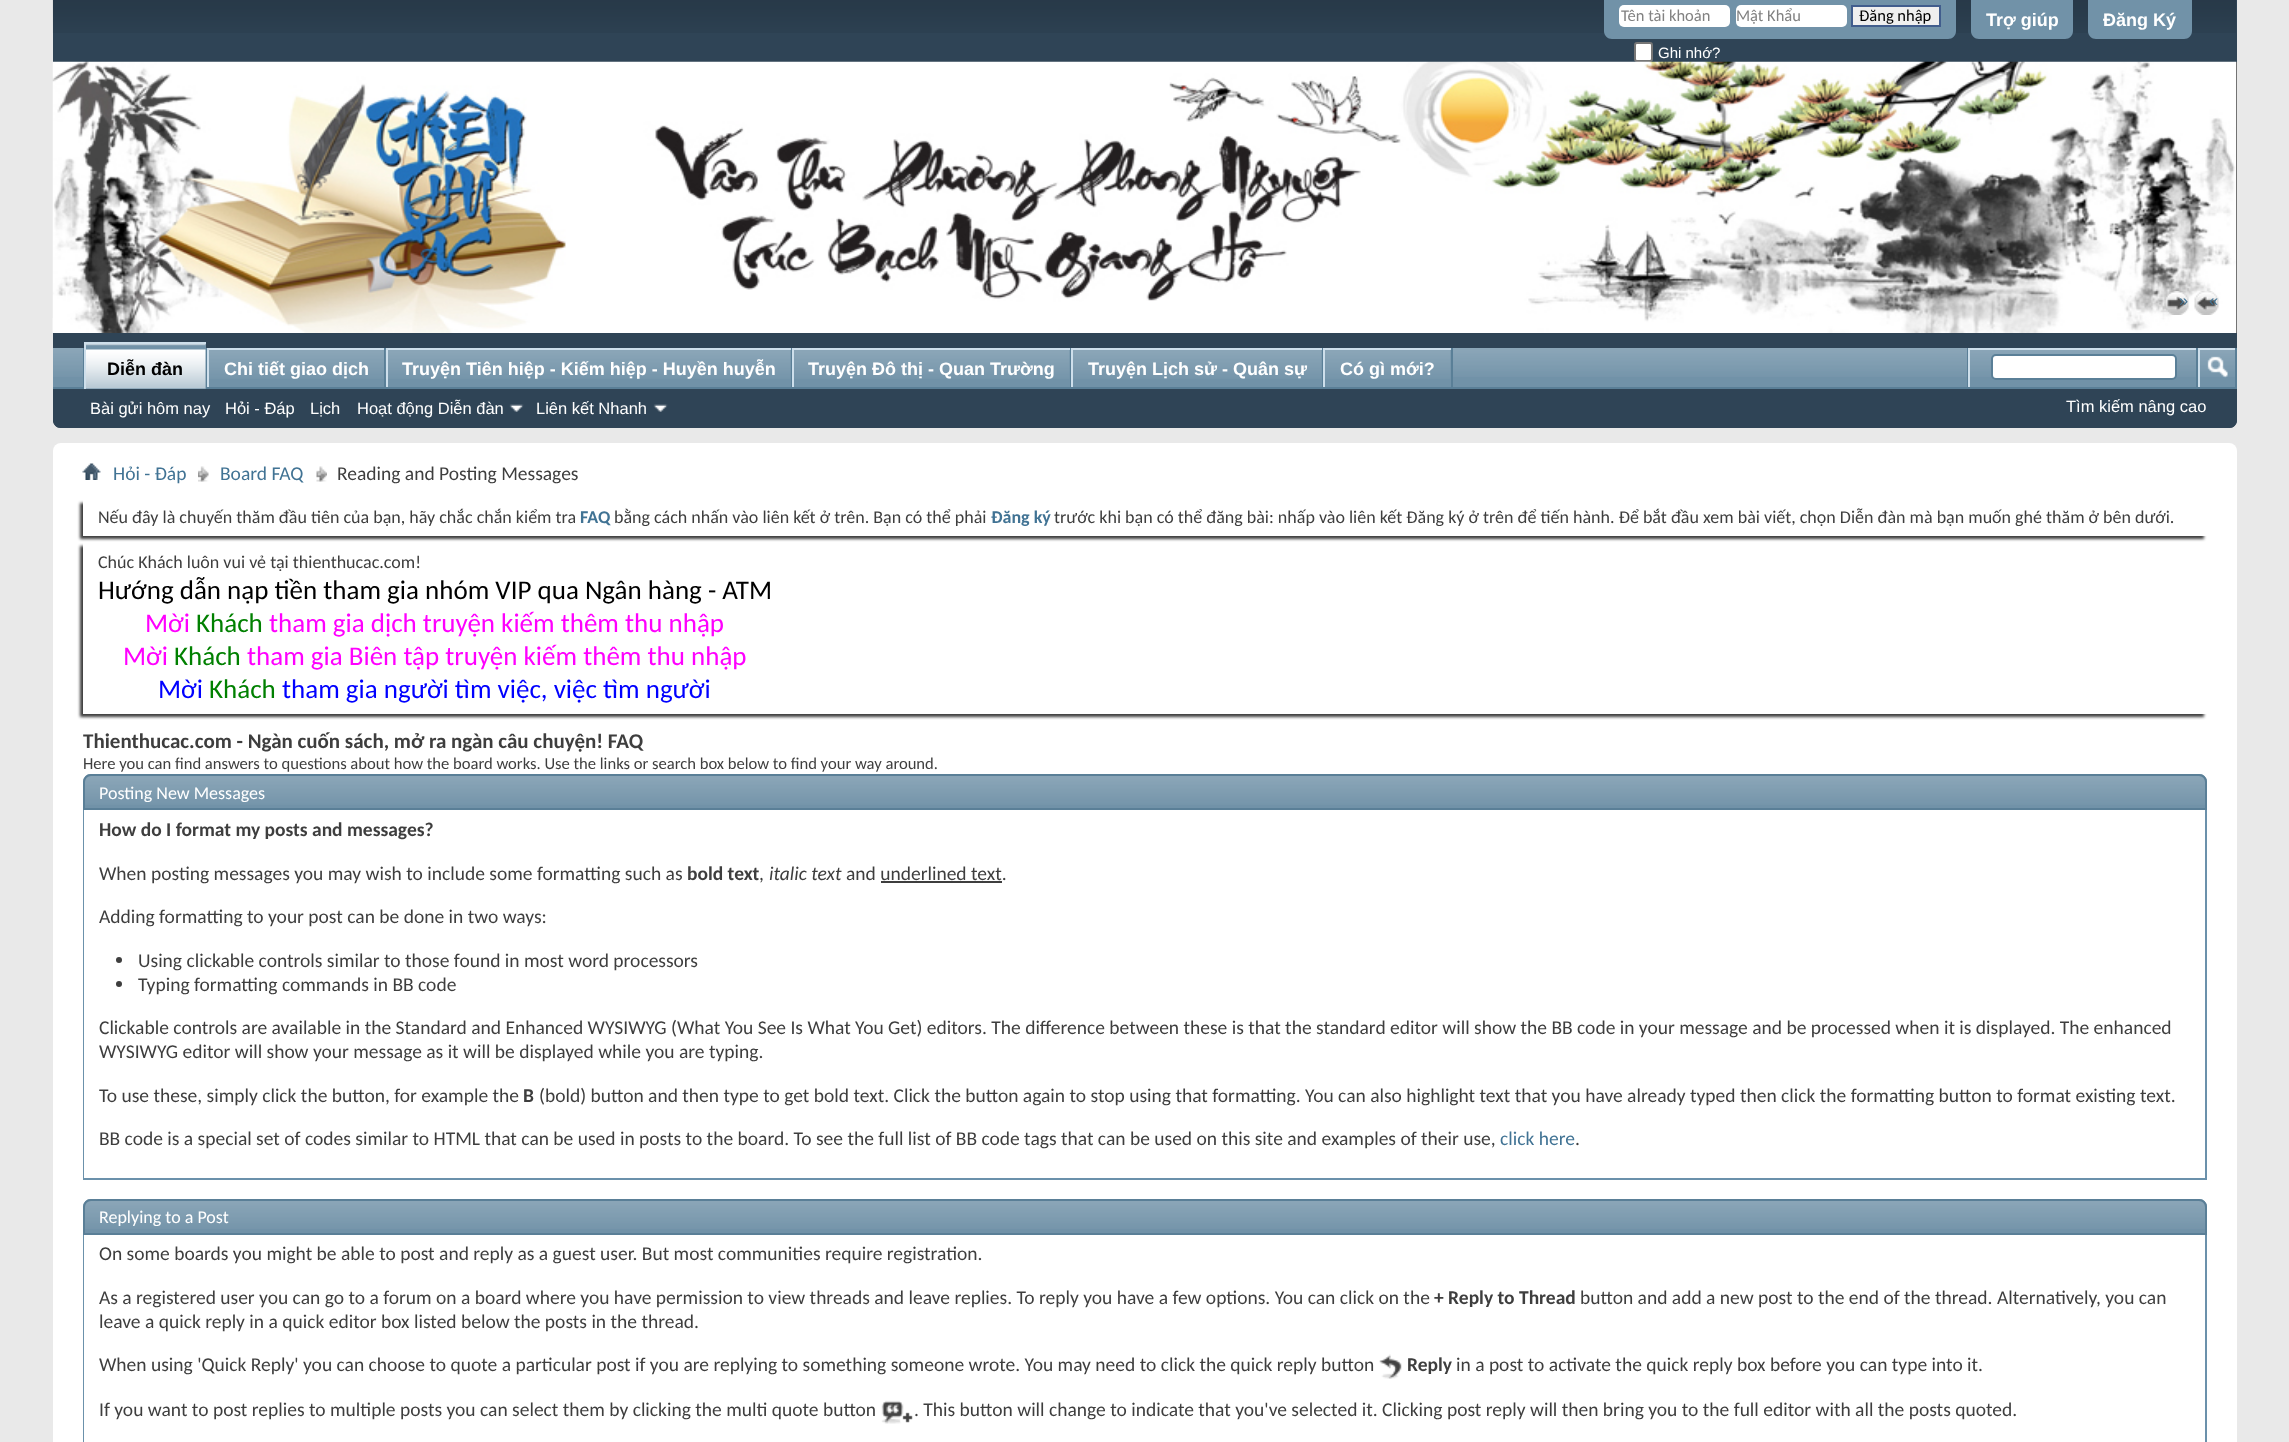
<svg xmlns="http://www.w3.org/2000/svg" width="2289" height="1442">
<defs>
<clipPath id="clip1"><path d="M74 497h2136v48h-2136zm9 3h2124v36h-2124z" clip-rule="evenodd"/></clipPath>
<clipPath id="clip2"><path d="M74 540h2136v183h-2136zm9 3h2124v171h-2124z" clip-rule="evenodd"/></clipPath>
</defs>
<rect width="100%" height="100%" fill="#e9e9e9"/>
<path d="M53 0h2184v420c0 4.5-3.5 8-8 8h-2168c-4.5 0-8-3.5-8-8z" fill="#2f4456"/>
<image x="52" y="0" width="2184" height="33" href="media/1.png"/>
<path d="M1604 0h352v31c0 4.5-3.5 8-8 8h-336c-4.5 0-8-3.5-8-8z" fill="#7192a8"/>
<rect x="1619" y="5" width="111" height="22" rx="5" fill="#fff"/>
<text x="1621" y="21" style="font-family:Carlito;font-size:16.5px;fill:#828282">Tên tài khoản</text>
<rect x="1736" y="5" width="111" height="22" rx="5" fill="#fff"/>
<text x="1736" y="21" style="font-family:Carlito;font-size:16.5px;fill:#828282">Mật Khẩu</text>
<rect x="1852" y="6" width="88" height="20" fill="#efefef" stroke="#415d8d" stroke-width="2"/>
<text x="1859" y="21" style="font-family:Carlito;font-size:16.5px;fill:#000">Đăng nhập</text>
<rect x="1635" y="43" width="17" height="18" rx="2" fill="#fff" stroke="#767676" stroke-width="2"/>
<text x="1658" y="58" style="font-family:Liberation Sans;font-size:15px;fill:#fff">Ghi nhớ?</text>
<path d="M1971 0h102v31c0 4.5-3.5 8-8 8h-86c-4.5 0-8-3.5-8-8z" fill="#7192a8"/>
<text x="1986" y="26" style="font-family:Liberation Sans;font-size:18px;font-weight:bold;fill:#fff">Trợ giúp</text>
<path d="M2088 0h104v31c0 4.5-3.5 8-8 8h-88c-4.5 0-8-3.5-8-8z" fill="#7192a8"/>
<text x="2103" y="26" style="font-family:Liberation Sans;font-size:18px;font-weight:bold;fill:#fff">Đăng Ký</text>
<rect x="2236" y="62" width="1" height="271" fill="#444"/>
<image x="52" y="318" width="1" height="15" href="media/3.png"/>
<image x="52" y="61" width="2185" height="272" href="media/2.png"/>
<image x="2164" y="291" width="25" height="24" href="media/4.png"/>
<text x="2179" y="306" style="font-family:Liberation Sans;font-size:16.5px;fill:#417394">»</text>
<image x="2194" y="291" width="25" height="24" href="media/5.png"/>
<text x="2209" y="306" style="font-family:Liberation Sans;font-size:16.5px;fill:#417394">«</text>
<path d="M53 348h2184v72c0 4.5-3.5 8-8 8h-2168c-4.5 0-8-3.5-8-8z" fill="#2f4456"/>
<rect x="53" y="348" width="2182" height="39" fill="#7192a8"/>
<image x="53" y="348" width="2182" height="29" href="media/6.png"/>
<rect x="206" y="348" width="1" height="39" fill="#5a7f97"/>
<rect x="83" y="348" width="1" height="39" fill="#5a7f97"/>
<rect x="384" y="348" width="2" height="41" fill="#5a7f97"/>
<rect x="207" y="348" width="177" height="2" fill="#cedfeb"/>
<rect x="207" y="348" width="2" height="41" fill="#cedfeb"/>
<rect x="791" y="348" width="1" height="41" fill="#5a7f97"/>
<rect x="388" y="350" width="403" height="27" fill="#7192a8"/>
<image x="385" y="349" width="406" height="30" href="media/10.png"/>
<rect x="386" y="348" width="405" height="2" fill="#cedfeb"/>
<rect x="386" y="348" width="2" height="41" fill="#cedfeb"/>
<rect x="1070" y="348" width="1" height="41" fill="#5a7f97"/>
<rect x="792" y="348" width="278" height="2" fill="#cedfeb"/>
<rect x="792" y="348" width="2" height="41" fill="#cedfeb"/>
<rect x="1322" y="348" width="1" height="41" fill="#5a7f97"/>
<rect x="1071" y="348" width="251" height="2" fill="#cedfeb"/>
<rect x="1071" y="348" width="2" height="41" fill="#cedfeb"/>
<rect x="1451" y="348" width="2" height="41" fill="#5a7f97"/>
<rect x="1323" y="348" width="128" height="2" fill="#cedfeb"/>
<rect x="1323" y="348" width="2" height="41" fill="#cedfeb"/>
<rect x="53" y="387" width="2184" height="2" fill="#5a7f97"/>
<rect x="86" y="344" width="120" height="45" fill="#7192a8"/>
<image x="86" y="344" width="120" height="45" href="media/7.png"/>
<rect x="84" y="342" width="122" height="2" fill="#cedfeb"/>
<rect x="84" y="342" width="2" height="47" fill="#cedfeb"/>
<text x="107" y="375" style="font-family:Liberation Sans;font-size:18px;font-weight:bold;fill:#000">Diễn đàn</text>
<text x="90" y="414" style="font-family:Liberation Sans;font-size:16.5px;fill:#fff">Bài gửi hôm nay</text>
<text x="225" y="414" style="font-family:Liberation Sans;font-size:16.5px;fill:#fff">Hỏi - Đáp</text>
<text x="310" y="414" style="font-family:Liberation Sans;font-size:16.5px;fill:#fff">Lịch</text>
<text x="357" y="414" style="font-family:Liberation Sans;font-size:16.5px;fill:#fff">Hoạt động Diễn đàn</text>
<image x="509" y="404" width="15" height="8" href="media/8.png"/>
<text x="536" y="414" style="font-family:Liberation Sans;font-size:16.5px;fill:#fff">Liên kết Nhanh</text>
<image x="653" y="404" width="15" height="8" href="media/8.png"/>
<rect x="209" y="350" width="175" height="27" fill="#7192a8"/>
<image x="209" y="350" width="175" height="29" href="media/9.png"/>
<text x="224" y="375" style="font-family:Liberation Sans;font-size:18px;font-weight:bold;fill:#fff">Chi tiết giao dịch</text>
<text x="402" y="375" style="font-family:Liberation Sans;font-size:18px;font-weight:bold;fill:#fff">Truyện Tiên hiệp - Kiếm hiệp - Huyền huyễn</text>
<rect x="794" y="350" width="276" height="27" fill="#7192a8"/>
<image x="794" y="350" width="276" height="29" href="media/11.png"/>
<text x="808" y="375" style="font-family:Liberation Sans;font-size:18px;font-weight:bold;fill:#fff">Truyện Đô thị - Quan Trường</text>
<rect x="1073" y="350" width="249" height="27" fill="#7192a8"/>
<image x="1073" y="350" width="249" height="29" href="media/12.png"/>
<text x="1088" y="375" style="font-family:Liberation Sans;font-size:18px;font-weight:bold;fill:#fff">Truyện Lịch sử - Quân sự</text>
<rect x="1325" y="350" width="126" height="27" fill="#7192a8"/>
<image x="1325" y="350" width="126" height="29" href="media/13.png"/>
<text x="1340" y="375" style="font-family:Liberation Sans;font-size:18px;font-weight:bold;fill:#fff">Có gì mới?</text>
<rect x="1967" y="348" width="1" height="39" fill="#5a7f97"/>
<rect x="1968" y="348" width="228" height="2" fill="#cedfeb"/>
<rect x="1968" y="348" width="2" height="39" fill="#cedfeb"/>
<rect x="1992" y="355" width="184" height="24" rx="4" fill="#fff" stroke="#5a7f97" stroke-width="2"/>
<rect x="2235" y="348" width="2" height="39" fill="#5a7f97"/>
<rect x="2196" y="348" width="2" height="39" fill="#5a7f97"/>
<rect x="2198" y="348" width="37" height="2" fill="#cedfeb"/>
<rect x="2198" y="348" width="2" height="39" fill="#cedfeb"/>
<image x="2207" y="356" width="21" height="22" href="media/14.png"/>
<text x="2066" y="412" style="font-family:Liberation Sans;font-size:16.5px;fill:#fff">Tìm kiếm nâng cao</text>
<rect x="53" y="443" width="2184" height="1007" rx="8" fill="#fff"/>
<image x="82" y="463" width="19" height="17" href="media/15.png"/>
<image x="198" y="466" width="11" height="16" href="media/16.png"/>
<text x="113" y="480" style="font-family:Carlito;font-size:19.5px;fill:#417394">Hỏi - Đáp</text>
<image x="316" y="466" width="11" height="16" href="media/17.png"/>
<text x="220" y="480" style="font-family:Carlito;font-size:19.5px;fill:#417394">Board FAQ</text>
<text x="337" y="480" style="font-family:Carlito;font-size:19.5px;fill:#3e3e3e">Reading and Posting Messages</text>
<g clip-path="url(#clip1)">
<rect x="80" y="503" width="2124" height="36" fill="#3e3e3e" filter="blur(1.5px)"/>
</g>
<text x="98" y="523" style="font-family:Carlito;font-size:18px;fill:#3e3e3e">Nếu đây là chuyến thăm đầu tiên của bạn, hãy chắc chắn kiểm tra</text>
<text x="580" y="523" style="font-family:Carlito;font-size:18px;font-weight:bold;fill:#417394">FAQ</text>
<text x="614" y="523" style="font-family:Carlito;font-size:18px;fill:#3e3e3e">bằng cách nhấn vào liên kết ở trên. Bạn có thể phải</text>
<text x="991" y="523" style="font-family:Carlito;font-size:18px;font-weight:bold;fill:#417394">Đăng ký</text>
<text x="1054" y="523" style="font-family:Carlito;font-size:18px;fill:#3e3e3e">trước khi bạn có thể đăng bài: nhấp vào liên kết Đăng ký ở trên để tiến hành. Để bắt đầu xem bài viết, chọn Diễn đàn mà bạn muốn ghé thăm ở bên dưới.</text>
<g clip-path="url(#clip2)">
<rect x="80" y="546" width="2124" height="171" fill="#3e3e3e" filter="blur(1.5px)"/>
</g>
<text x="98" y="568" style="font-family:Carlito;font-size:18px;fill:#3e3e3e">Chúc Khách luôn vui vẻ tại thienthucac.com!</text>
<text x="98" y="599" style="font-family:Carlito;font-size:27px;fill:#000">Hướng dẫn nạp tiền tham gia nhóm VIP qua Ngân hàng - ATM</text>
<text x="145" y="632" style="font-family:Carlito;font-size:27px;fill:#f0f">Mời</text>
<text x="196" y="632" style="font-family:Carlito;font-size:27px;fill:#008000">Khách</text>
<text x="269" y="632" style="font-family:Carlito;font-size:27px;fill:#f0f">tham gia dịch truyện kiếm thêm thu nhập</text>
<text x="123" y="665" style="font-family:Carlito;font-size:27px;fill:#f0f">Mời</text>
<text x="174" y="665" style="font-family:Carlito;font-size:27px;fill:#008000">Khách</text>
<text x="247" y="665" style="font-family:Carlito;font-size:27px;fill:#f0f">tham gia Biên tập truyện kiếm thêm thu nhập</text>
<text x="158" y="698" style="font-family:Carlito;font-size:27px;fill:#00f">Mời</text>
<text x="209" y="698" style="font-family:Carlito;font-size:27px;fill:#008000">Khách</text>
<text x="282" y="698" style="font-family:Carlito;font-size:27px;fill:#00f">tham gia người tìm việc, việc tìm người</text>
<text x="83" y="748" style="font-family:Carlito;font-size:21px;font-weight:bold;fill:#3e3e3e">Thienthucac.com - Ngàn cuốn sách, mở ra ngàn câu chuyện! FAQ</text>
<text x="83" y="769" style="font-family:Carlito;font-size:16.58px;fill:#3e3e3e">Here you can find answers to questions about how the board works. Use the links or search box below to find your way around.</text>
<path d="M91 774h2108c4.5 0 8 3.5 8 8v28h-2124v-28c0-4.5 3.5-8 8-8z" fill="#7192a8"/>
<image x="83" y="775" width="2124" height="30" href="media/18.png"/>
<path d="M91 775h2108c4 0 7 3 7 7v27h-2122v-27c0-4 3-7 7-7z" fill="none" stroke="#5a7f97" stroke-width="2"/>
<text x="99" y="799" style="font-family:Carlito;font-size:18px;fill:#fff">Posting New Messages</text>
<rect x="2205" y="810" width="2" height="369" fill="#6b91ab"/>
<rect x="83" y="1178" width="2124" height="2" fill="#6b91ab"/>
<rect x="83" y="810" width="2" height="369" fill="#6b91ab"/>
<rect x="84" y="810" width="1" height="368" fill="#fff"/>
<text x="99" y="836" style="font-family:Carlito;font-size:19.5px;font-weight:bold;fill:#3e3e3e">How do I format my posts and messages?</text>
<text x="99" y="880" style="font-family:Carlito;font-size:19.5px;fill:#3e3e3e">When posting messages you may wish to include some formatting such as</text>
<text x="687" y="880" style="font-family:Carlito;font-size:19.5px;font-weight:bold;fill:#3e3e3e">bold text</text>
<text x="759" y="880" style="font-family:Carlito;font-size:19.5px;fill:#3e3e3e">,</text>
<text x="769" y="880" style="font-family:Carlito;font-size:19.5px;font-style:italic;fill:#3e3e3e">italic text</text>
<text x="846" y="880" style="font-family:Carlito;font-size:19.5px;fill:#3e3e3e">and underlined text.</text>
<rect x="881" y="881" width="121" height="2" fill="#3e3e3e"/>
<text x="99" y="923" style="font-family:Carlito;font-size:19.5px;fill:#3e3e3e">Adding formatting to your post can be done in two ways:</text>
<circle cx="119" cy="960" r="3" fill="#3e3e3e"/>
<text x="138" y="967" style="font-family:Carlito;font-size:19.5px;fill:#3e3e3e">Using clickable controls similar to those found in most word processors</text>
<circle cx="119" cy="984" r="3" fill="#3e3e3e"/>
<text x="138" y="991" style="font-family:Carlito;font-size:19.5px;fill:#3e3e3e">Typing formatting commands in BB code</text>
<text x="99" y="1034" style="font-family:Carlito;font-size:19.5px;fill:#3e3e3e">Clickable controls are available in the Standard and Enhanced WYSIWYG (What You See Is What You Get) editors. The difference between these is that the standard editor will show the BB code in your message and be processed when it is displayed. The enhanced</text>
<text x="99" y="1058" style="font-family:Carlito;font-size:19.5px;fill:#3e3e3e">WYSIWYG editor will show your message as it will be displayed while you are typing.</text>
<text x="99" y="1102" style="font-family:Carlito;font-size:19.5px;fill:#3e3e3e">To use these, simply click the button, for example the</text>
<text x="523" y="1102" style="font-family:Carlito;font-size:19.5px;font-weight:bold;fill:#3e3e3e">B</text>
<text x="539" y="1102" style="font-family:Carlito;font-size:19.5px;fill:#3e3e3e">(bold) button and then type to get bold text. Click the button again to stop using that formatting. You can also highlight text that you have already typed then click the formatting button to format existing text.</text>
<text x="99" y="1145" style="font-family:Carlito;font-size:19.5px;fill:#3e3e3e">BB code is a special set of codes similar to HTML that can be used in posts to the board. To see the full list of BB code tags that can be used on this site and examples of their use,</text>
<text x="1500" y="1145" style="font-family:Carlito;font-size:19.5px;fill:#417394">click here</text>
<text x="1575" y="1145" style="font-family:Carlito;font-size:19.5px;fill:#3e3e3e">.</text>
<path d="M91 1199h2108c4.5 0 8 3.5 8 8v28h-2124v-28c0-4.5 3.5-8 8-8z" fill="#7192a8"/>
<image x="83" y="1200" width="2124" height="29" href="media/19.png"/>
<path d="M91 1200h2108c4 0 7 3 7 7v27h-2122v-27c0-4 3-7 7-7z" fill="none" stroke="#5a7f97" stroke-width="2"/>
<text x="99" y="1223" style="font-family:Carlito;font-size:18px;fill:#fff">Replying to a Post</text>
<rect x="2205" y="1235" width="2" height="207" fill="#6b91ab"/>
<rect x="83" y="1235" width="1" height="207" fill="#6b91ab"/>
<text x="99" y="1260" style="font-family:Carlito;font-size:19.5px;fill:#3e3e3e">On some boards you might be able to post and reply as a guest user. But most communities require registration.</text>
<text x="99" y="1304" style="font-family:Carlito;font-size:19.5px;fill:#3e3e3e">As a registered user you can go to a forum on a board where you have permission to view threads and leave replies. To reply you have a few options. You can click on the</text>
<text x="1434" y="1304" style="font-family:Carlito;font-size:19.5px;font-weight:bold;fill:#3e3e3e">+ Reply to Thread</text>
<text x="1580" y="1304" style="font-family:Carlito;font-size:19.5px;fill:#3e3e3e">button and add a new post to the end of the thread. Alternatively, you can</text>
<text x="99" y="1328" style="font-family:Carlito;font-size:19.5px;fill:#3e3e3e">leave a quick reply in a quick editor box listed below the posts in the thread.</text>
<text x="99" y="1371" style="font-family:Carlito;font-size:19.5px;fill:#3e3e3e">When using 'Quick Reply' you can choose to quote a particular post if you are replying to something someone wrote. You may need to click the quick reply button</text>
<image x="1379" y="1354" width="23" height="25" href="media/20.png"/>
<text x="1407" y="1371" style="font-family:Carlito;font-size:19.5px;font-weight:bold;fill:#3e3e3e">Reply</text>
<text x="1456" y="1371" style="font-family:Carlito;font-size:19.5px;fill:#3e3e3e">in a post to activate the quick reply box before you can type into it.</text>
<text x="99" y="1416" style="font-family:Carlito;font-size:19.5px;fill:#3e3e3e">If you want to post replies to multiple posts you can select them by clicking the multi quote button</text>
<image x="881" y="1400" width="32" height="24" href="media/21.png"/>
<text x="914" y="1416" style="font-family:Carlito;font-size:19.5px;fill:#3e3e3e">. This button will change to indicate that you've selected it. Clicking post reply will then bring you to the full editor with all the posts quoted.</text>
</svg>
